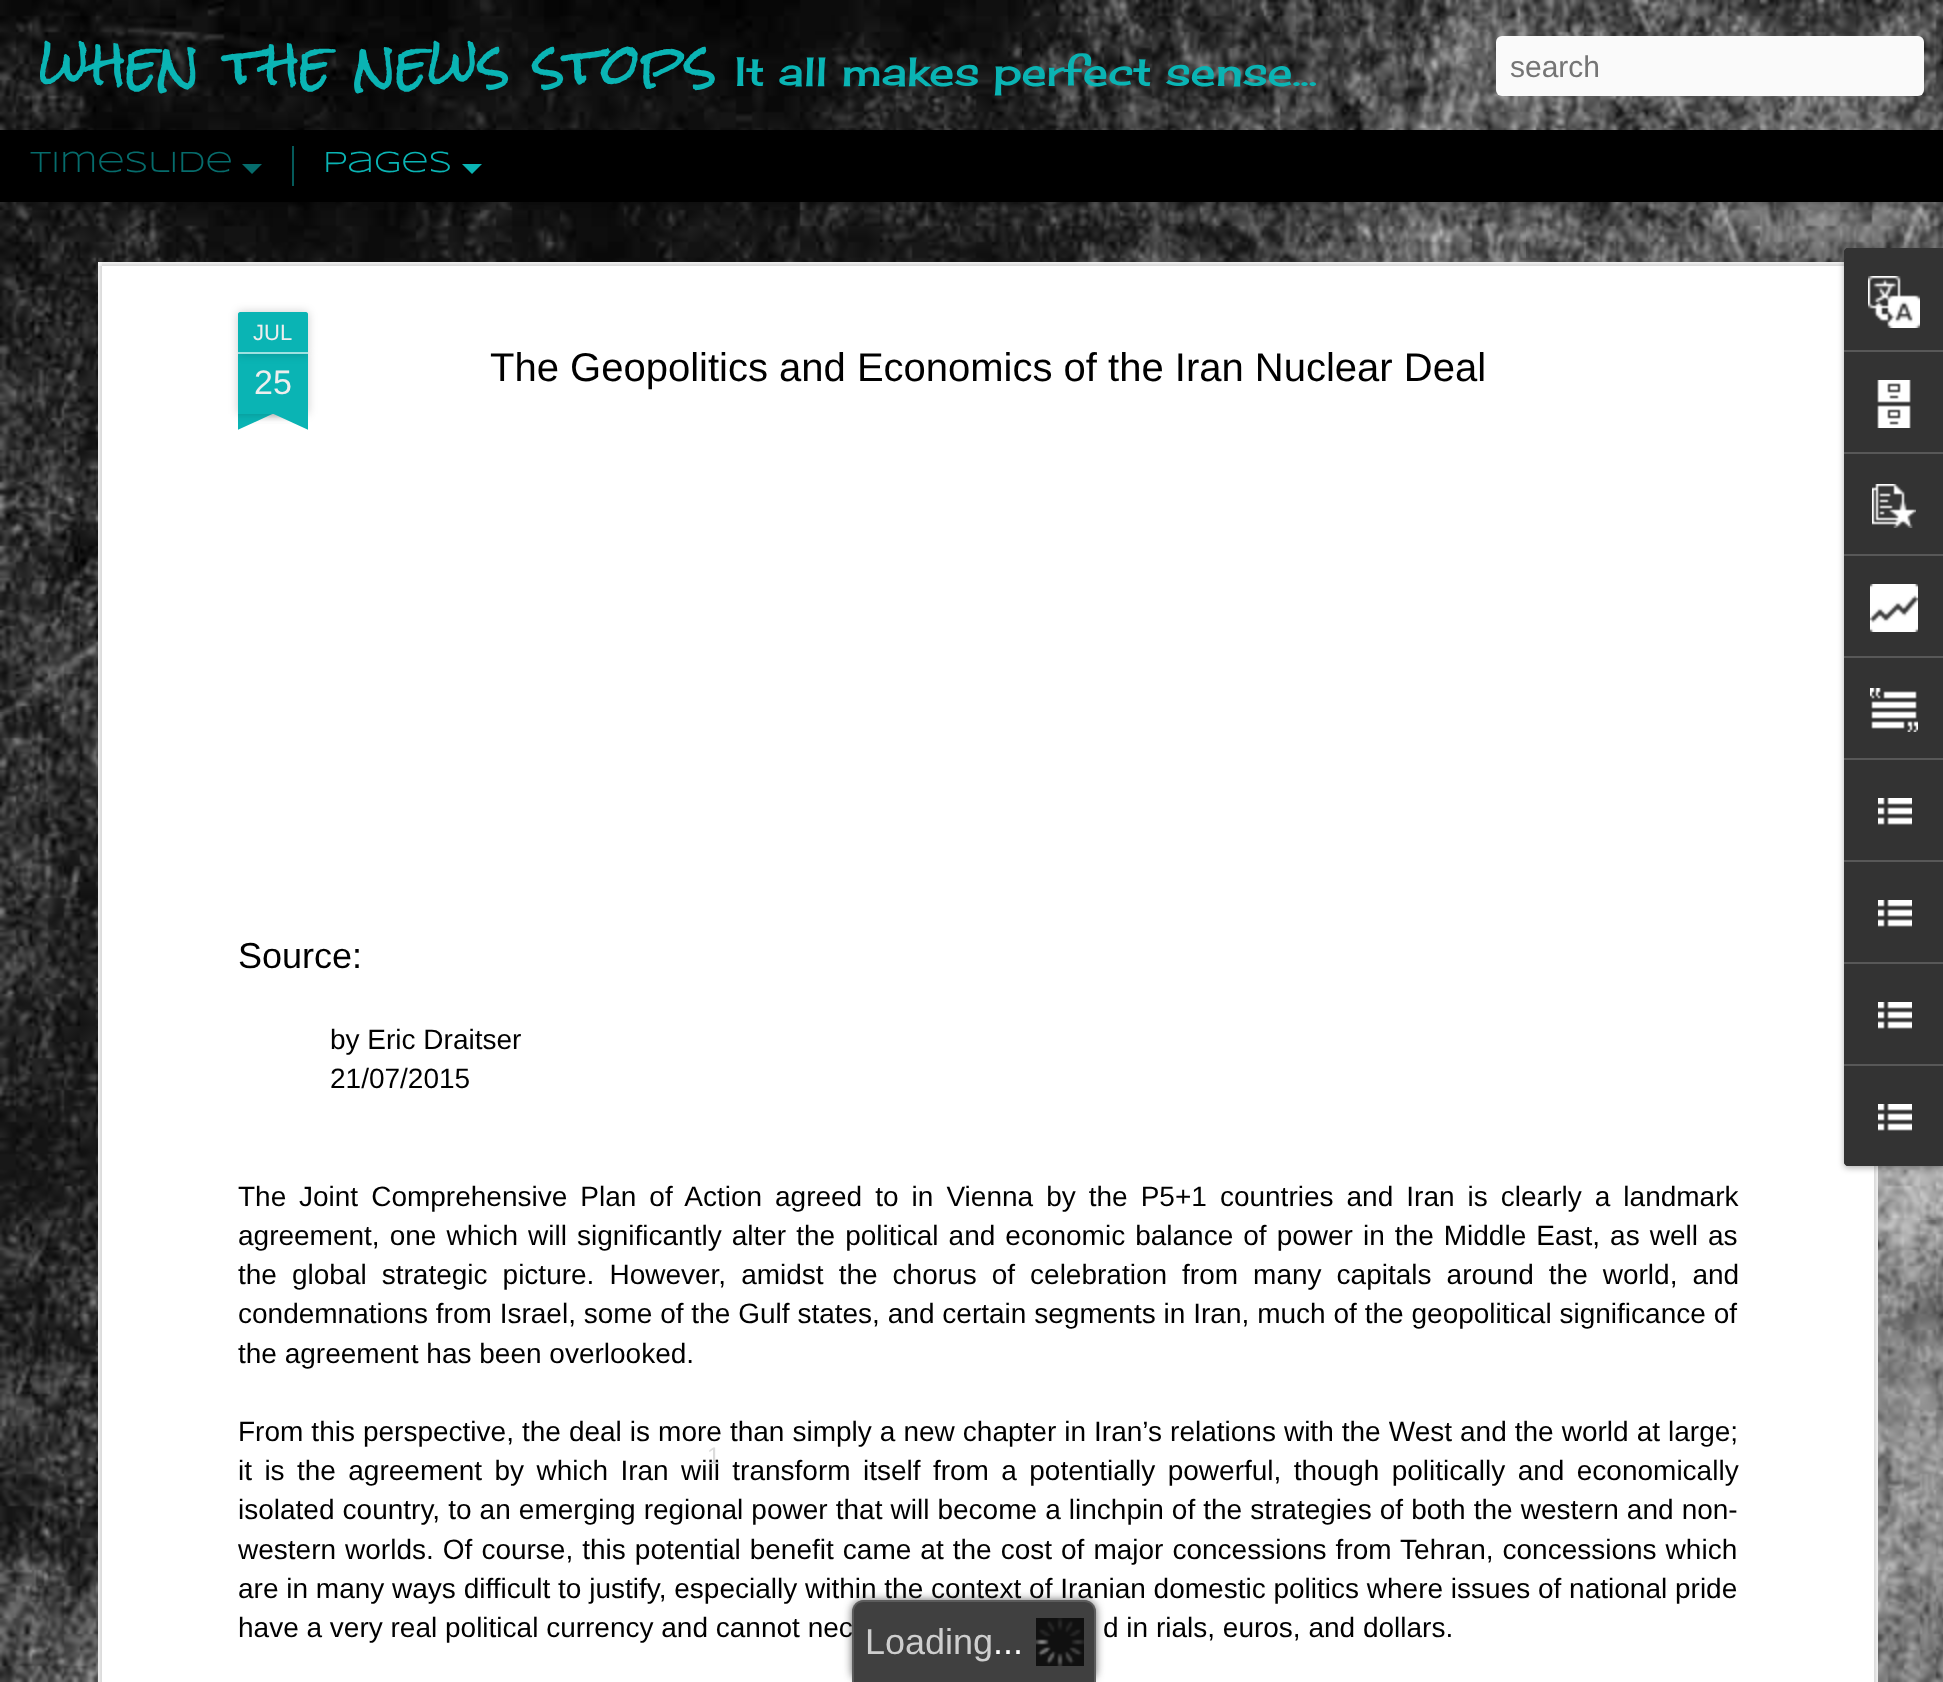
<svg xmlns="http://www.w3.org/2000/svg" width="1943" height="1682">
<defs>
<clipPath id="clip1"><rect x="40" width="1434" height="130"/></clipPath>
<clipPath id="clip2"><rect x="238" y="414" width="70" height="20"/></clipPath>
<clipPath id="clip3"><rect x="238" y="414" width="70" height="20"/></clipPath>
<clipPath id="clip4"><path d="M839 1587h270v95h-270zm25 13h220c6.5 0 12 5.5 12 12v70h-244v-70c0-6.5 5.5-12 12-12z" clip-rule="evenodd"/></clipPath>
</defs>
<rect width="100%" height="100%" fill="#000"/>
<image x="0" y="202" width="1943" height="1480" href="media/2.png"/>
<rect y="130" width="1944" height="70" fill="#00000080" filter="blur(8px)"/>
<image x="0" y="0" width="1943" height="130" href="media/1.png"/>
<g clip-path="url(#clip1)">
<text x="40" y="86" style="font-family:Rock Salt;font-size:56px;fill:#0ab4b4">when the news stops</text>
</g>
<text x="735" y="86" style="font-family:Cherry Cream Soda;font-size:40px;fill:#0ab4b4">It all makes perfect sense...</text>
<rect x="1496" y="36" width="428" height="60" rx="6" fill="#fafafa"/>
<text x="1510" y="77" style="font-family:Liberation Sans;font-size:30px;fill:#757575">search</text>
<text x="30" y="172" style="font-family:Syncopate;font-size:30px;fill:#066c6c">Timeslide</text>
<path d="M242 164h20l-10 10z" fill="#066c6c"/>
<rect x="292" y="146" width="2" height="40" fill="#055a5a"/>
<text x="323" y="172" style="font-family:Syncopate;font-size:30px;fill:#0ab4b4">Pages</text>
<path d="M462 164h20l-10 10z" fill="#0ab4b4"/>
<rect x="98" y="262" width="1780" height="1420" fill="#fff"/>
<image x="98" y="262" width="1780" height="1420" href="media/3.png"/>
<rect x="238" y="354" width="70" height="60" fill="#00000033" filter="blur(5px)"/>
<rect x="238" y="354" width="70" height="60" fill="#0ab4b4"/>
<rect x="238" y="312" width="70" height="42" rx="2" fill="#00000033" filter="blur(5px)"/>
<path d="M240 312h66c1 0 2 1 2 2v40h-70v-40c0-1 1-2 2-2z" fill="#0ab4b4"/>
<rect x="238" y="352" width="70" height="2" fill="#9de1e1"/>
<text x="253" y="340" style="font-family:Liberation Sans;font-size:22px;fill:#eee">JUL</text>
<text x="254" y="394" style="font-family:Liberation Sans;font-size:34px;fill:#eee">25</text>
<g clip-path="url(#clip2)">
<rect x="220" y="394" width="100" height="20" fill="#00000033" filter="blur(5px)"/>
</g>
<g clip-path="url(#clip3)">
<path d="M220 416l91-42l9 18l-91 42z" fill="#0ab4b4"/>
</g>
<g clip-path="url(#clip2)">
<rect x="226" y="394" width="100" height="20" fill="#00000033" filter="blur(5px)"/>
</g>
<g clip-path="url(#clip3)">
<path d="M235 374l91 42l-9 18l-91-42z" fill="#0ab4b4"/>
</g>
<text x="490" y="381" style="font-family:Liberation Sans;font-size:40px;fill:#000">The Geopolitics and Economics of the Iran Nuclear Deal</text>
<text x="238" y="968" style="font-family:Liberation Sans;font-size:36px;fill:#000">Source:</text>
<text x="330" y="1049" style="font-family:Liberation Sans;font-size:28px;fill:#000">by Eric Draitser</text>
<text x="330" y="1088" style="font-family:Liberation Sans;font-size:28px;fill:#000">21/07/2015</text>
<text x="238" y="1206" style="font-family:Liberation Sans;font-size:28px;fill:#000">The</text>
<text x="299" y="1206" word-spacing="5.25" style="font-family:Liberation Sans;font-size:28px;fill:#000">Joint Comprehensive Plan of Action</text>
<text x="775" y="1206" word-spacing="5.25" style="font-family:Liberation Sans;font-size:28px;fill:#000">agreed to in Vienna by the P5+1 countries and Iran is clearly a landmark</text>
<text x="238" y="1245" word-spacing="2.25" style="font-family:Liberation Sans;font-size:28px;fill:#000">agreement, one which will significantly alter the political and economic balance of power in the Middle East, as well as</text>
<text x="238" y="1284" word-spacing="7.25" style="font-family:Liberation Sans;font-size:28px;fill:#000">the global strategic picture. However, amidst the chorus of celebration from many capitals around the world, and</text>
<text x="238" y="1323" word-spacing="0.1" style="font-family:Liberation Sans;font-size:28px;fill:#000">condemnations from Israel, some of the Gulf states, and certain segments in Iran, much of the geopolitical significance of</text>
<text x="238" y="1363" style="font-family:Liberation Sans;font-size:28px;fill:#000">the agreement has been overlooked.</text>
<text x="238" y="1441" word-spacing="0.25" style="font-family:Liberation Sans;font-size:28px;fill:#000">From this perspective, the deal is more than simply a new chapter in Iran’s relations with the West and the world at large;</text>
<text x="238" y="1480" word-spacing="4.6" style="font-family:Liberation Sans;font-size:28px;fill:#000">it is the agreement by which Iran will transform itself from a potentially powerful, though politically and economically</text>
<text x="238" y="1519" word-spacing="0.3" style="font-family:Liberation Sans;font-size:28px;fill:#000">isolated country, to an emerging regional power that will become a linchpin of the strategies of both the western and non-</text>
<text x="238" y="1559" word-spacing="1.25" style="font-family:Liberation Sans;font-size:28px;fill:#000">western worlds. Of course, this potential benefit came at the cost of major concessions from Tehran, concessions which</text>
<text x="238" y="1598" style="font-family:Liberation Sans;font-size:28px;fill:#000">are in many ways difficult to justify, especially within the context of Iranian domestic politics where issues of national pride</text>
<text x="238" y="1637" style="font-family:Liberation Sans;font-size:28px;fill:#000">have a very real political currency and cannot nec</text>
<text x="1103" y="1637" style="font-family:Liberation Sans;font-size:28px;fill:#000">d in rials, euros, and dollars.</text>
<rect x="1844" y="250" width="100" height="918" rx="4" fill="#0000004d" filter="blur(3px)"/>
<path d="M1848 248h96v918h-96c-2 0-4-2-4-4v-910c0-2 2-4 4-4z" fill="#333"/>
<path d="M1848 248h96v102h-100v-98c0-2 2-4 4-4z" fill="#333"/>
<image x="1868" y="276" width="52" height="52" href="media/4.png"/>
<rect x="1844" y="350" width="99" height="2" fill="#585858"/>
<image x="1877" y="380" width="34" height="48" href="media/5.png"/>
<rect x="1844" y="452" width="99" height="2" fill="#585858"/>
<image x="1872" y="484" width="44" height="44" href="media/6.png"/>
<rect x="1844" y="554" width="99" height="2" fill="#585858"/>
<image x="1870" y="584" width="48" height="48" href="media/7.png"/>
<rect x="1844" y="656" width="99" height="2" fill="#585858"/>
<image x="1870" y="688" width="48" height="44" href="media/8.png"/>
<rect x="1844" y="758" width="99" height="2" fill="#585858"/>
<image x="1878" y="798" width="34" height="27" href="media/9.png"/>
<rect x="1844" y="860" width="99" height="2" fill="#585858"/>
<image x="1878" y="900" width="34" height="27" href="media/9.png"/>
<rect x="1844" y="962" width="99" height="2" fill="#585858"/>
<image x="1878" y="1002" width="34" height="27" href="media/9.png"/>
<path d="M1844 1064h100v102h-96c-2 0-4-2-4-4z" fill="#333"/>
<rect x="1844" y="1064" width="99" height="2" fill="#585858"/>
<image x="1878" y="1104" width="34" height="27" href="media/9.png"/>
<text x="707" y="1464" style="font-family:Liberation Sans;font-size:24px;fill:#dbdbdb">1</text>
<g clip-path="url(#clip4)">
<rect x="852" y="1600" width="244" height="82" rx="12" fill="#333333bf" filter="blur(4px)"/>
</g>
<path d="M864 1600h220c6.5 0 12 5.5 12 12v70h-244v-70c0-6.5 5.5-12 12-12z" fill="#000000bf"/>
<path d="M864 1600h220c7 0 12 5 12 12v70h-244v-70c0-7 5-12 12-12zm0 2h220c6 0 10 4 10 10v70h-240v-70c0-6 4-10 10-10z" fill="#666666bf" fill-rule="evenodd"/>
<image x="1036" y="1618" width="48" height="48" href="media/10.png"/>
<text x="865" y="1654" style="font-family:Liberation Sans;font-size:36px;fill:#cecece">Loading</text>
<text x="993" y="1654" style="font-family:Liberation Sans;font-size:36px;fill:#fff">...</text>
</svg>
